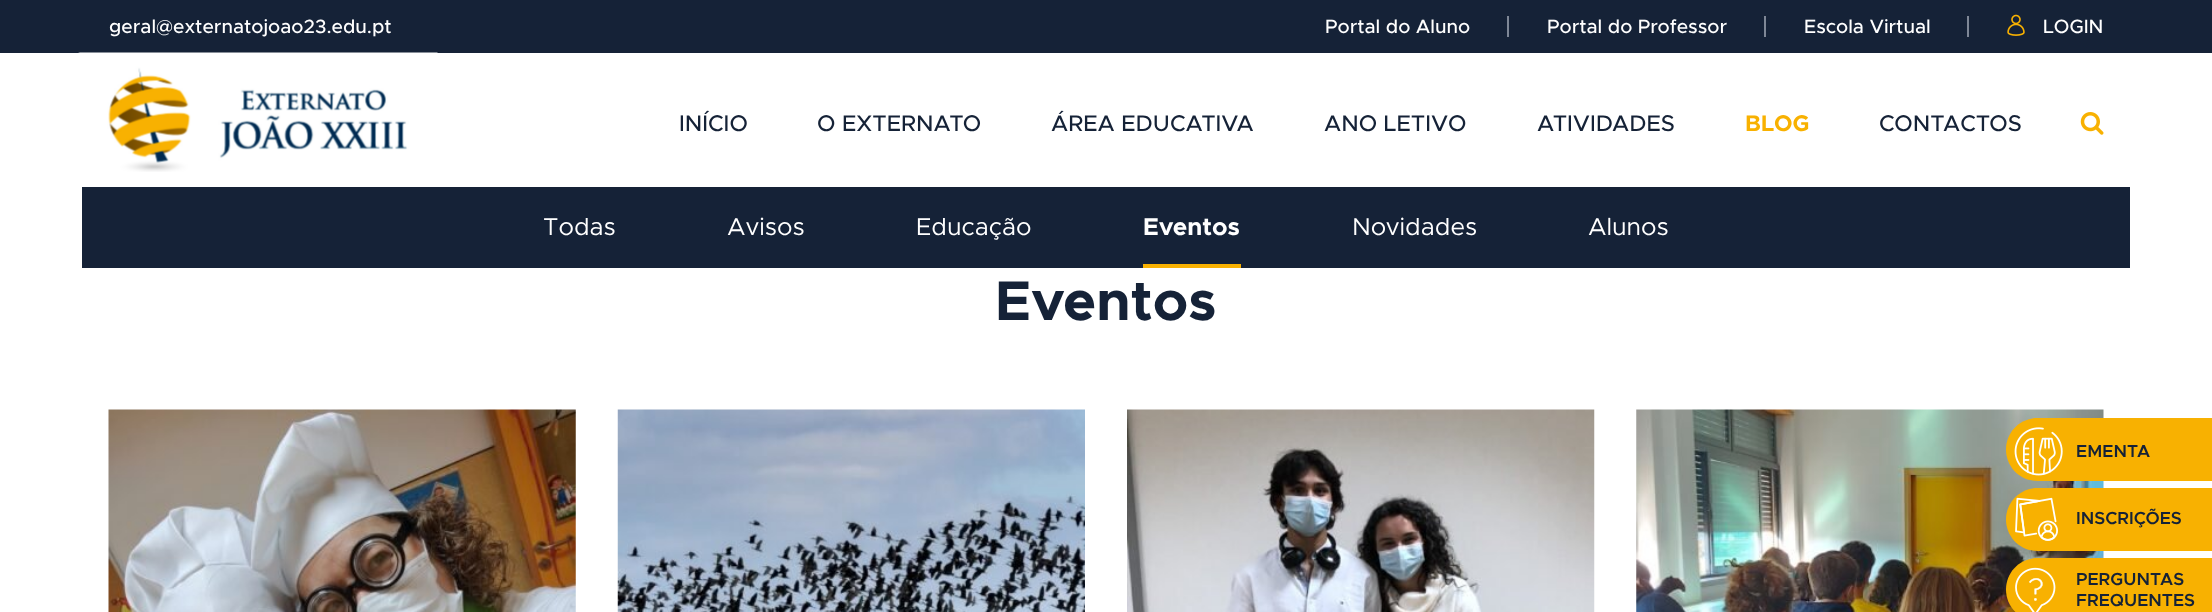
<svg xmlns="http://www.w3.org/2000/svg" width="2212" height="612">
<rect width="100%" height="100%" fill="#fff"/>
<rect width="2212" height="53" fill="#152237"/>
<text x="109" y="33" style="font-family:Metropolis;font-size:19.25px;font-weight:500;fill:#fff">geral@externatojoao23.edu.pt</text>
<text x="1325" y="33" style="font-family:Metropolis;font-size:19.25px;font-weight:500;fill:#fff">Portal do Aluno</text>
<rect x="1507" y="16" width="2" height="21" fill="#7e8796"/>
<text x="1547" y="33" style="font-family:Metropolis;font-size:19.25px;font-weight:500;fill:#fff">Portal do Professor</text>
<rect x="1764" y="16" width="2" height="21" fill="#7e8796"/>
<text x="1804" y="33" style="font-family:Metropolis;font-size:19.25px;font-weight:500;fill:#fff">Escola Virtual</text>
<rect x="1967" y="16" width="2" height="21" fill="#7e8796"/>
<image x="2007" y="14" width="18" height="22" href="media/1.png"/>
<text x="2043" y="33" style="font-family:Metropolis;font-size:19.25px;font-weight:500;fill:#fff">LOGIN</text>
<image x="78" y="52" width="360" height="120" href="media/2.png"/>
<text x="679" y="131" style="font-family:Metropolis;font-size:22.75px;font-weight:500;fill:#152237">INÍCIO</text>
<text x="1051" y="131" style="font-family:Metropolis;font-size:22.75px;font-weight:500;fill:#152237">ÁREA EDUCATIVA</text>
<text x="1745" y="131" style="font-family:Metropolis;font-size:22.75px;font-weight:bold;fill:#f8b101">BLOG</text>
<rect x="82" y="187" width="2048" height="81" fill="#152237"/>
<text x="543" y="235" style="font-family:Metropolis;font-size:24.5px;fill:#fff">Todas</text>
<text x="727" y="235" style="font-family:Metropolis;font-size:24.5px;fill:#fff">Avisos</text>
<text x="916" y="235" style="font-family:Metropolis;font-size:24.5px;fill:#fff">Educação</text>
<rect x="1143" y="264" width="98" height="4" fill="#f8b101"/>
<text x="1143" y="235" style="font-family:Metropolis;font-size:24.5px;font-weight:bold;fill:#fff">Eventos</text>
<text x="1352" y="235" style="font-family:Metropolis;font-size:24.5px;fill:#fff">Novidades</text>
<text x="1588" y="235" style="font-family:Metropolis;font-size:24.5px;fill:#fff">Alunos</text>
<text x="817" y="131" style="font-family:Metropolis;font-size:22.75px;font-weight:500;fill:#152237">O EXTERNATO</text>
<text x="1324" y="131" style="font-family:Metropolis;font-size:22.75px;font-weight:500;fill:#152237">ANO LETIVO</text>
<text x="1537" y="131" style="font-family:Metropolis;font-size:22.75px;font-weight:500;fill:#152237">ATIVIDADES</text>
<text x="1879" y="131" style="font-family:Metropolis;font-size:22.75px;font-weight:500;fill:#152237">CONTACTOS</text>
<image x="2080" y="112" width="24" height="23" href="media/3.png"/>
<text x="995" y="320" style="font-family:Metropolis;font-size:56px;font-weight:bold;fill:#152237">Eventos</text>
<image x="108" y="409" width="468" height="203" href="media/4.png"/>
<image x="617" y="409" width="468" height="203" href="media/5.png"/>
<image x="1127" y="409" width="468" height="203" href="media/6.png"/>
<image x="1636" y="409" width="468" height="203" href="media/7.png"/>
<path d="M2037.5 418h174.5v63h-174.5c-17.5 0-31.5-14-31.5-31.5c0-17.5 14-31.5 31.5-31.5z" fill="#f8b101"/>
<image x="2014" y="427" width="49" height="49" href="media/8.png"/>
<text x="2076" y="457" style="font-family:Metropolis;font-size:17.5px;font-weight:600;fill:#152237">EMENTA</text>
<path d="M2037.5 488h174.5v63h-174.5c-17.5 0-31.5-14-31.5-31.5c0-17.5 14-31.5 31.5-31.5z" fill="#f8b101"/>
<image x="2015" y="497" width="43" height="44" href="media/9.png"/>
<text x="2076" y="524" style="font-family:Metropolis;font-size:17.5px;font-weight:600;fill:#152237">INSCRIÇÕES</text>
<path d="M2037.5 558h174.5v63h-174.5c-17.5 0-31.5-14-31.5-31.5c0-17.5 14-31.5 31.5-31.5z" fill="#f8b101"/>
<image x="2015" y="567" width="41" height="45" href="media/10.png"/>
<text x="2076" y="585" style="font-family:Metropolis;font-size:17.5px;font-weight:600;fill:#152237">PERGUNTAS</text>
<text x="2076" y="606" style="font-family:Metropolis;font-size:17.5px;font-weight:600;fill:#152237">FREQUENTES</text>
</svg>
